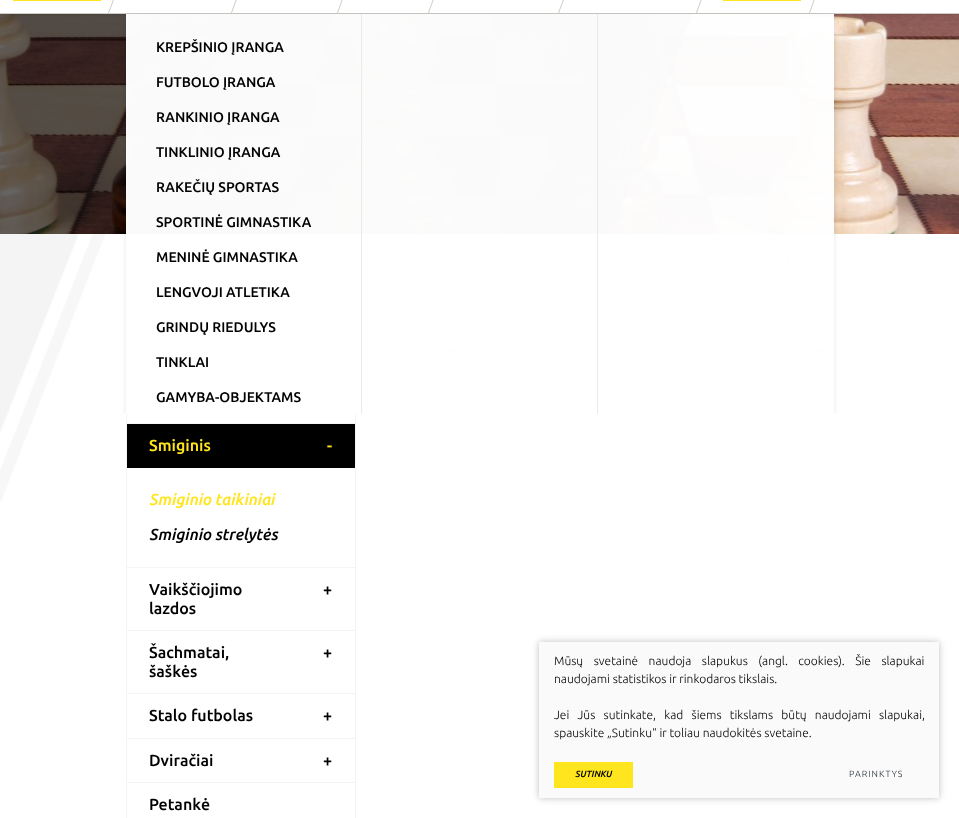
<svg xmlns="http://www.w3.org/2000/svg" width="959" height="818">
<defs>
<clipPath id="clip1"><rect y="14" width="959" height="220"/></clipPath>
<clipPath id="clip2"><rect x="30" y="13" width="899" height="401"/></clipPath>
<clipPath id="clip3"><path d="M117 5h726v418h-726zm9 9h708v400h-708z" clip-rule="evenodd"/></clipPath>
</defs>
<rect width="100%" height="100%" fill="#fff"/>
<image x="0" y="234" width="106" height="268" href="media/1.png"/>
<image x="0" y="14" width="959" height="220" href="media/2.png"/>
<g clip-path="url(#clip1)">
<path d="M-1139-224h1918l-253 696h-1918z" fill="#00000099"/>
</g>
<rect y="-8" width="959" height="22" fill="#00000026" filter="blur(2.5px)"/>
<rect width="959" height="13" fill="#fff"/>
<rect y="13" width="959" height="1" fill="#cdccc7"/>
<path d="M127-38h1l-19 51h-1z" fill="#cdccc7"/>
<image x="184" y="258" width="4" height="7" href="media/3.png"/>
<image x="278" y="258" width="4" height="7" href="media/3.png"/>
<image x="352" y="258" width="4" height="7" href="media/3.png"/>
<image x="786" y="257" width="4" height="7" href="media/4.png"/>
<rect x="386.5" y="326.5" width="79" height="48" fill="#fbfbfb" stroke="#e1e1e1"/>
<image x="446" y="348" width="8" height="6" href="media/5.png"/>
<rect x="614.5" y="326.5" width="219" height="48" fill="#fbfbfb" stroke="#e1e1e1"/>
<image x="814" y="348" width="8" height="6" href="media/5.png"/>
<rect x="126" y="352" width="230" height="1" fill="#e1e1e1"/>
<rect x="126.5" y="379.5" width="229" height="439" fill="none" stroke="#f4f4f4"/>
<g clip-path="url(#clip2)">
<g clip-path="url(#clip3)">
<rect x="126" y="14" width="708" height="400" fill="#0000001a" filter="blur(2.5px)"/>
</g>
</g>
<path d="M249-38h1l-18 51h-1z" fill="#cdccc7"/>
<path d="M355-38h1l-18 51h-1z" fill="#cdccc7"/>
<path d="M446-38h1l-18 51h-1z" fill="#cdccc7"/>
<path d="M577-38h1l-19 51h-1z" fill="#cdccc7"/>
<path d="M714-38h1l-18 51h-1z" fill="#cdccc7"/>
<rect x="723" width="78" height="1" fill="#ffe51e"/>
<path d="M827-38h1l-18 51h-1z" fill="#cdccc7"/>
<rect x="13" width="88" height="1" fill="#ffe51e"/>
<rect x="126" y="14" width="708" height="400" fill="#fffffffa"/>
<text x="156" y="52" style="font-family:Ubuntu;font-size:14px;font-weight:500;fill:#000">KREPŠINIO ĮRANGA</text>
<text x="156" y="87" style="font-family:Ubuntu;font-size:14px;font-weight:500;fill:#000">FUTBOLO ĮRANGA</text>
<text x="156" y="122" style="font-family:Ubuntu;font-size:14px;font-weight:500;fill:#000">RANKINIO ĮRANGA</text>
<text x="156" y="157" style="font-family:Ubuntu;font-size:14px;font-weight:500;fill:#000">TINKLINIO ĮRANGA</text>
<text x="156" y="192" style="font-family:Ubuntu;font-size:14px;font-weight:500;fill:#000">RAKEČIŲ SPORTAS</text>
<text x="156" y="227" style="font-family:Ubuntu;font-size:14px;font-weight:500;fill:#000">SPORTINĖ GIMNASTIKA</text>
<text x="156" y="262" style="font-family:Ubuntu;font-size:14px;font-weight:500;fill:#000">MENINĖ GIMNASTIKA</text>
<text x="156" y="297" style="font-family:Ubuntu;font-size:14px;font-weight:500;fill:#000">LENGVOJI ATLETIKA</text>
<text x="156" y="332" style="font-family:Ubuntu;font-size:14px;font-weight:500;fill:#000">GRINDŲ RIEDULYS</text>
<text x="156" y="367" style="font-family:Ubuntu;font-size:14px;font-weight:500;fill:#000">TINKLAI</text>
<text x="156" y="402" style="font-family:Ubuntu;font-size:14px;font-weight:500;fill:#000">GAMYBA-OBJEKTAMS</text>
<rect x="361" y="14" width="1" height="400" fill="#eaeae8"/>
<rect x="597" y="14" width="1" height="400" fill="#eaeae8"/>
<rect x="127" y="424" width="228" height="44" fill="#000"/>
<rect x="127" y="423" width="228" height="1" fill="#f4f4f4"/>
<text x="149" y="451" style="font-family:Ubuntu;font-size:16px;font-weight:500;fill:#ffe51e">Smiginis</text>
<text x="327" y="451" style="font-family:Ubuntu;font-size:16px;font-weight:500;fill:#ffe51e">-</text>
<text x="149" y="505" style="font-family:Ubuntu;font-size:16px;font-weight:500;font-style:italic;fill:#ffe51e">Smiginio taikiniai</text>
<text x="149" y="540" style="font-family:Ubuntu;font-size:16px;font-weight:500;font-style:italic;fill:#000">Smiginio strelytės</text>
<rect x="127" y="567" width="228" height="1" fill="#f4f4f4"/>
<text x="149" y="595" style="font-family:Ubuntu;font-size:16px;font-weight:500;fill:#000">Vaikščiojimo</text>
<text x="149" y="614" style="font-family:Ubuntu;font-size:16px;font-weight:500;fill:#000">lazdos</text>
<text x="323" y="595" style="font-family:Ubuntu;font-size:16px;font-weight:500;fill:#000">+</text>
<rect x="127" y="630" width="228" height="1" fill="#f4f4f4"/>
<text x="149" y="658" style="font-family:Ubuntu;font-size:16px;font-weight:500;fill:#000">Šachmatai,</text>
<text x="149" y="677" style="font-family:Ubuntu;font-size:16px;font-weight:500;fill:#000">šaškės</text>
<text x="323" y="658" style="font-family:Ubuntu;font-size:16px;font-weight:500;fill:#000">+</text>
<rect x="127" y="693" width="228" height="1" fill="#f4f4f4"/>
<text x="149" y="721" style="font-family:Ubuntu;font-size:16px;font-weight:500;fill:#000">Stalo futbolas</text>
<text x="323" y="721" style="font-family:Ubuntu;font-size:16px;font-weight:500;fill:#000">+</text>
<rect x="127" y="738" width="228" height="1" fill="#f4f4f4"/>
<text x="149" y="766" style="font-family:Ubuntu;font-size:16px;font-weight:500;fill:#000">Dviračiai</text>
<text x="323" y="766" style="font-family:Ubuntu;font-size:16px;font-weight:500;fill:#000">+</text>
<rect x="127" y="782" width="228" height="1" fill="#f4f4f4"/>
<text x="149" y="810" style="font-family:Ubuntu;font-size:16px;font-weight:500;fill:#000">Petankė</text>
<rect x="539" y="642" width="400" height="156" fill="#00000040" filter="blur(3.5px)"/>
<rect x="539" y="642" width="400" height="156" fill="#fafafa"/>
<text x="554" y="665" word-spacing="7.75" style="font-family:Ubuntu;font-size:12px;font-weight:300;fill:#000">Mūsų svetainė naudoja slapukus (angl. cookies). Šie slapukai</text>
<text x="554" y="683" style="font-family:Ubuntu;font-size:12px;font-weight:300;fill:#000">naudojami statistikos ir rinkodaros tikslais.</text>
<text x="554" y="719" word-spacing="5.5" style="font-family:Ubuntu;font-size:12px;font-weight:300;fill:#000">Jei Jūs sutinkate, kad šiems tikslams būtų naudojami slapukai,</text>
<text x="554" y="737" style="font-family:Ubuntu;font-size:12px;font-weight:300;fill:#000">spauskite „Sutinku“ ir toliau naudokitės svetaine.</text>
<rect x="554" y="762" width="79" height="26" fill="#ffe51e"/>
<text x="575" y="777" style="font-family:Ubuntu;font-size:9px;font-weight:500;font-style:italic;fill:#000">SUTINKU</text>
<text x="849" y="777" style="font-family:Ubuntu;font-size:9px;font-weight:300;letter-spacing:1px;fill:#263238">PARINKTYS</text>
</svg>
